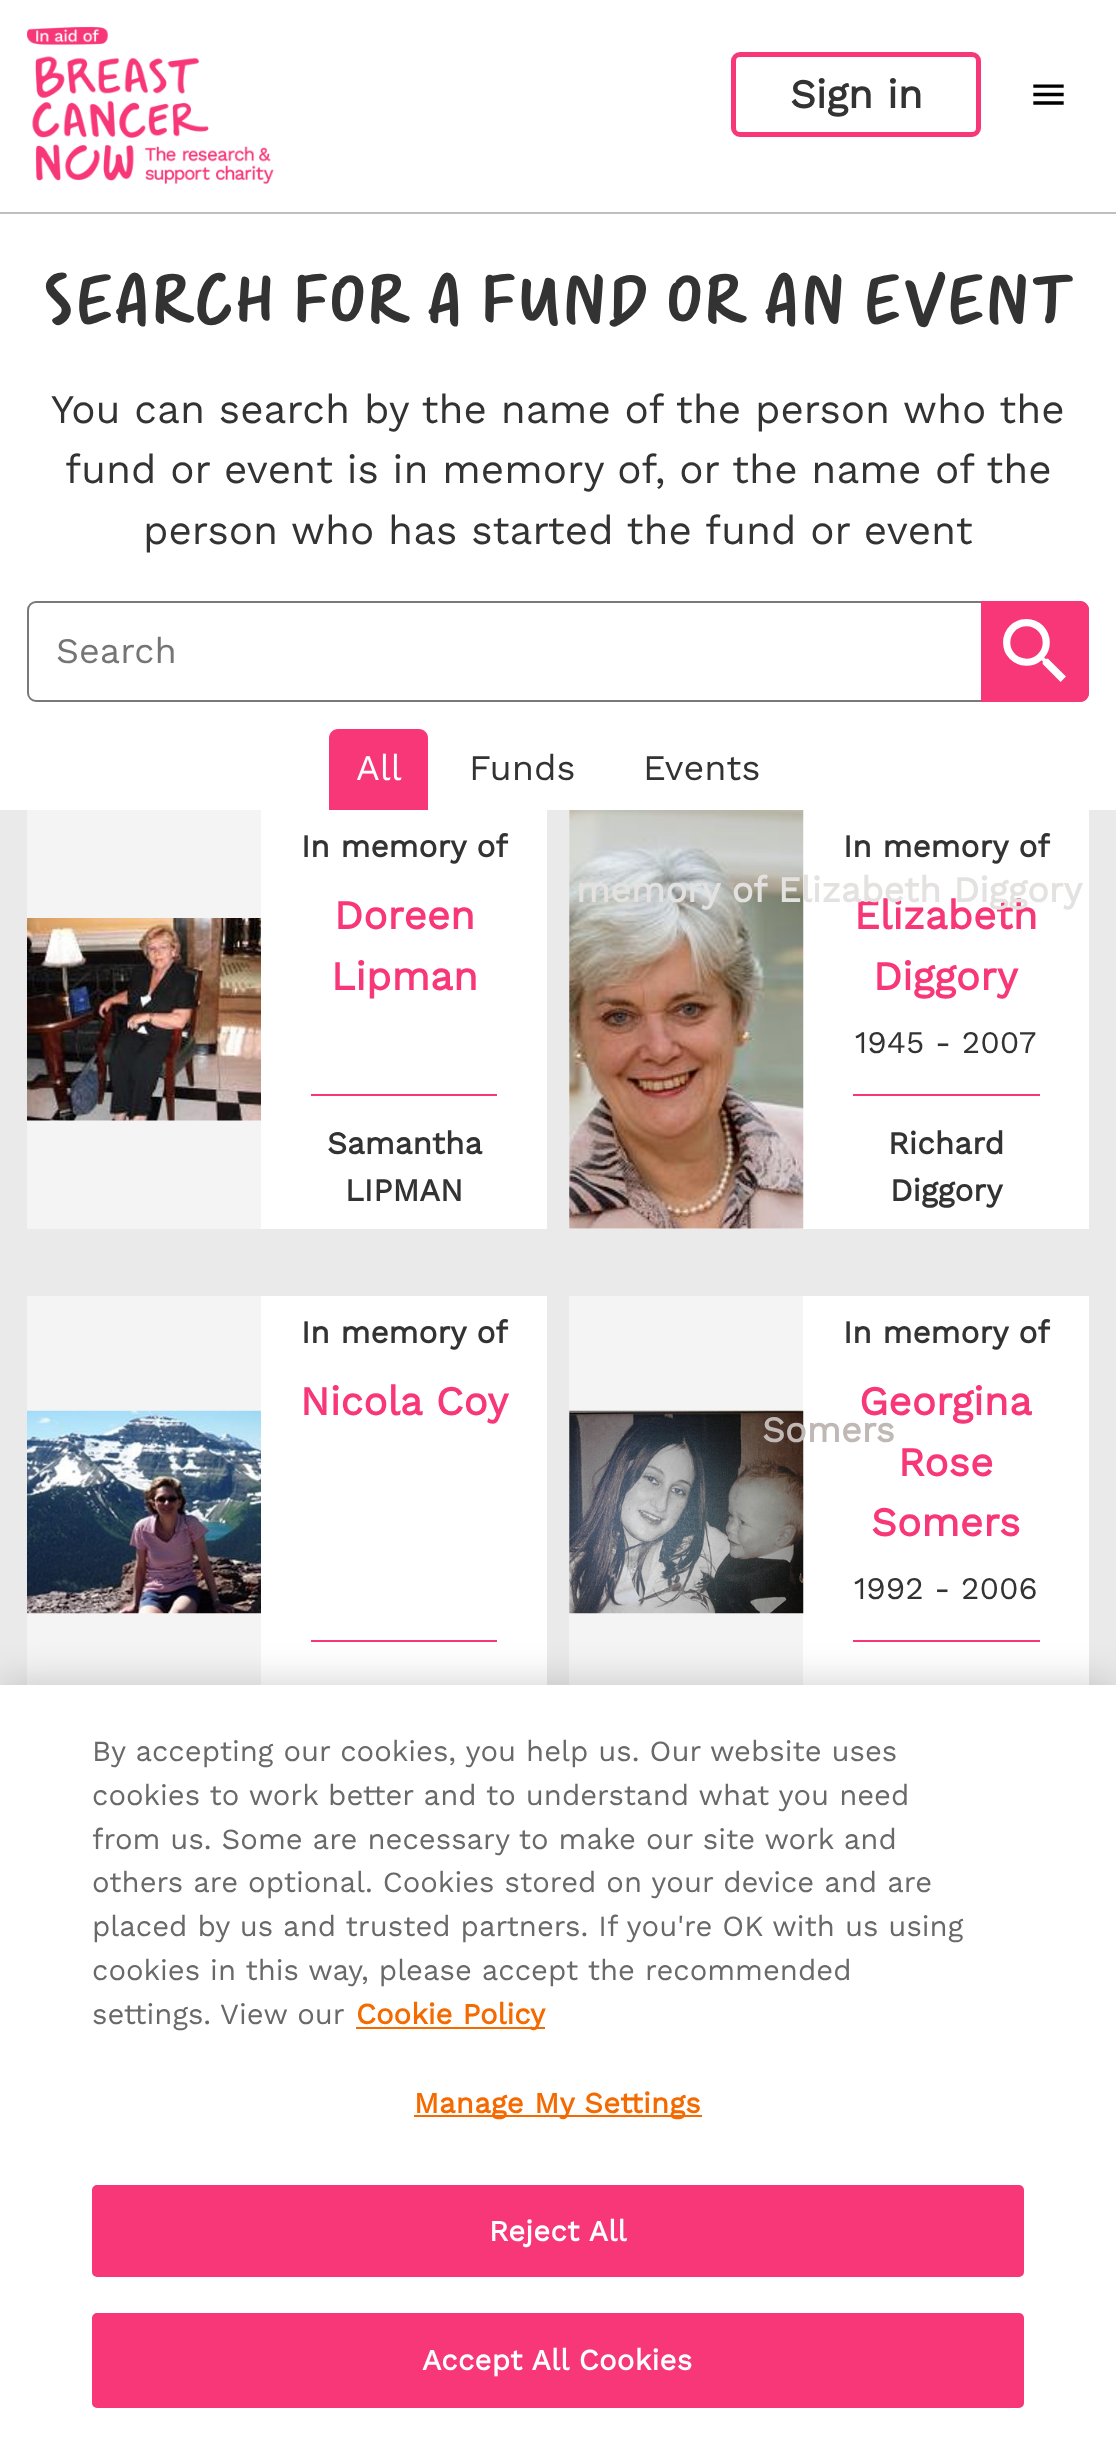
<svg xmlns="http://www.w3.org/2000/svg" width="1116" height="2443">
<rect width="100%" height="100%" fill="#fff"/>
<rect y="212" width="1116" height="2" fill="#bfbfbf"/>
<image x="27" y="27" width="247" height="157" href="media/1.png"/>
<rect x="733.5" y="54.5" width="245" height="80" rx="6.5" fill="none" stroke="#f73778" stroke-width="5"/>
<text x="790" y="108" style="font-family:Work Sans;font-size:40.5px;font-weight:bold;fill:#333">Sign in</text>
<image x="1033" y="84" width="31" height="21" href="media/2.png"/>
<text x="43" y="324" style="font-family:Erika;font-size:72px;fill:#333">SEARCH FOR A FUND OR AN EVENT</text>
<text x="51" y="423" style="font-family:Work Sans;font-size:40.5px;fill:#333">You can search by the name of the person who the</text>
<text x="65" y="483" style="font-family:Work Sans;font-size:40.5px;fill:#333">fund or event is in memory of, or the name of the</text>
<text x="143" y="544" style="font-family:Work Sans;font-size:40.5px;fill:#333">person who has started the fund or event</text>
<rect x="28" y="602" width="1060" height="99" rx="8" fill="none" stroke="#797979" stroke-width="2"/>
<text x="56" y="663" style="font-family:Work Sans;font-size:36px;fill:#757575">Search</text>
<path d="M981 601h99c5 0 9 4 9 9v83c0 5-4 9-9 9h-99z" fill="#f73778"/>
<image x="1003" y="619" width="63" height="63" href="media/3.png"/>
<path d="M338 729h81c5 0 9 4 9 9v72h-99v-72c0-5 4-9 9-9z" fill="#f73778"/>
<text x="356" y="780" style="font-family:Work Sans;font-size:36px;fill:#fff">All</text>
<text x="469" y="780" style="font-family:Work Sans;font-size:36px;fill:#333">Funds</text>
<text x="643" y="780" style="font-family:Work Sans;font-size:36px;fill:#333">Events</text>
<rect y="810" width="1116" height="875" fill="#eaeaea"/>
<rect x="261" y="810" width="286" height="419" fill="#fff"/>
<rect x="27" y="810" width="234" height="419" fill="#f4f4f4"/>
<image x="27" y="918" width="234" height="203" href="media/4.png"/>
<text x="301" y="857" style="font-family:Work Sans;font-size:31.5px;font-weight:bold;fill:#333">In memory of</text>
<text x="334" y="929" style="font-family:Work Sans;font-size:40.5px;font-weight:bold;fill:#f73778">Doreen</text>
<text x="331" y="990" style="font-family:Work Sans;font-size:40.5px;font-weight:bold;fill:#f73778">Lipman</text>
<rect x="311" y="1094" width="186" height="2" fill="#f73778"/>
<text x="327" y="1154" style="font-family:Work Sans;font-size:31.5px;font-weight:bold;fill:#333">Samantha</text>
<text x="345" y="1201" style="font-family:Work Sans;font-size:31.5px;font-weight:bold;fill:#333">LIPMAN</text>
<rect x="803" y="810" width="286" height="419" fill="#fff"/>
<rect x="569" y="810" width="234" height="419" fill="#f4f4f4"/>
<image x="569" y="810" width="235" height="419" href="media/5.png"/>
<text x="843" y="857" style="font-family:Work Sans;font-size:31.5px;font-weight:bold;fill:#333">In memory of</text>
<text x="854" y="929" style="font-family:Work Sans;font-size:40.5px;font-weight:bold;fill:#f73778">Elizabeth</text>
<text x="873" y="990" style="font-family:Work Sans;font-size:40.5px;font-weight:bold;fill:#f73778">Diggory</text>
<text x="855" y="1053" style="font-family:Work Sans;font-size:31.5px;fill:#333">1945 - 2007</text>
<rect x="853" y="1094" width="187" height="2" fill="#f73778"/>
<text x="888" y="1154" style="font-family:Work Sans;font-size:31.5px;font-weight:bold;fill:#333">Richard</text>
<text x="890" y="1201" style="font-family:Work Sans;font-size:31.5px;font-weight:bold;fill:#333">Diggory</text>
<text x="576" y="902" style="font-family:Work Sans;font-size:36px;font-weight:bold;fill:#e4e2e1">memory of Elizabeth Diggory</text>
<rect x="261" y="1296" width="286" height="389" fill="#fff"/>
<rect x="27" y="1296" width="234" height="389" fill="#f4f4f4"/>
<image x="27" y="1410" width="234" height="204" href="media/6.png"/>
<text x="301" y="1343" style="font-family:Work Sans;font-size:31.5px;font-weight:bold;fill:#333">In memory of</text>
<text x="300" y="1415" style="font-family:Work Sans;font-size:40.5px;font-weight:bold;fill:#f73778">Nicola Coy</text>
<rect x="311" y="1640" width="186" height="2" fill="#f73778"/>
<rect x="803" y="1296" width="286" height="389" fill="#fff"/>
<rect x="569" y="1296" width="234" height="389" fill="#f4f4f4"/>
<image x="569" y="1410" width="235" height="204" href="media/7.png"/>
<text x="762" y="1442" style="font-family:Work Sans;font-size:36px;font-weight:bold;fill:#c0b8b4">Somers</text>
<text x="843" y="1343" style="font-family:Work Sans;font-size:31.5px;font-weight:bold;fill:#333">In memory of</text>
<text x="859" y="1415" style="font-family:Work Sans;font-size:40.5px;font-weight:bold;fill:#f73778">Georgina</text>
<text x="898" y="1476" style="font-family:Work Sans;font-size:40.5px;font-weight:bold;fill:#f73778">Rose</text>
<text x="871" y="1536" style="font-family:Work Sans;font-size:40.5px;font-weight:bold;fill:#f73778">Somers</text>
<text x="854" y="1599" style="font-family:Work Sans;font-size:31.5px;fill:#333">1992 - 2006</text>
<rect x="853" y="1640" width="187" height="2" fill="#f73778"/>
<rect y="1685" width="1116" height="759" fill="#00000033" filter="blur(20px)"/>
<rect y="1685" width="1116" height="758" fill="#fff"/>
<text x="92" y="1761" style="font-family:Work Sans;font-size:29.25px;fill:#696969">By accepting our cookies, you help us. Our website uses</text>
<text x="92" y="1805" style="font-family:Work Sans;font-size:29.25px;fill:#696969">cookies to work better and to understand what you need</text>
<text x="92" y="1849" style="font-family:Work Sans;font-size:29.25px;fill:#696969">from us. Some are necessary to make our site work and</text>
<text x="92" y="1892" style="font-family:Work Sans;font-size:29.25px;fill:#696969">others are optional. Cookies stored on your device and are</text>
<text x="92" y="1936" style="font-family:Work Sans;font-size:29.25px;fill:#696969">placed by us and trusted partners. If you're OK with us using</text>
<text x="92" y="1980" style="font-family:Work Sans;font-size:29.25px;fill:#696969">cookies in this way, please accept the recommended</text>
<text x="92" y="2024" style="font-family:Work Sans;font-size:29.25px;fill:#696969">settings. View our</text>
<rect x="356" y="2027" width="189" height="2" fill="#f56a00"/>
<text x="356" y="2024" style="font-family:Work Sans;font-size:29.25px;font-weight:bold;fill:#f56a00">Cookie Policy</text>
<rect x="414" y="2115" width="288" height="2" fill="#f56a00"/>
<text x="414" y="2113" style="font-family:Work Sans;font-size:29.25px;font-weight:bold;letter-spacing:0.25px;fill:#f56a00">Manage My Settings</text>
<rect x="93" y="2186" width="930" height="90" rx="4" fill="#f73778" stroke="#f73778" stroke-width="2"/>
<text x="489" y="2241" style="font-family:Work Sans;font-size:29.25px;font-weight:bold;letter-spacing:0.25px;fill:#fff">Reject All</text>
<rect x="93" y="2314" width="930" height="93" rx="4" fill="#f73778" stroke="#f73778" stroke-width="2"/>
<text x="422" y="2370" style="font-family:Work Sans;font-size:29.25px;font-weight:bold;letter-spacing:0.25px;fill:#fff">Accept All Cookies</text>
</svg>
